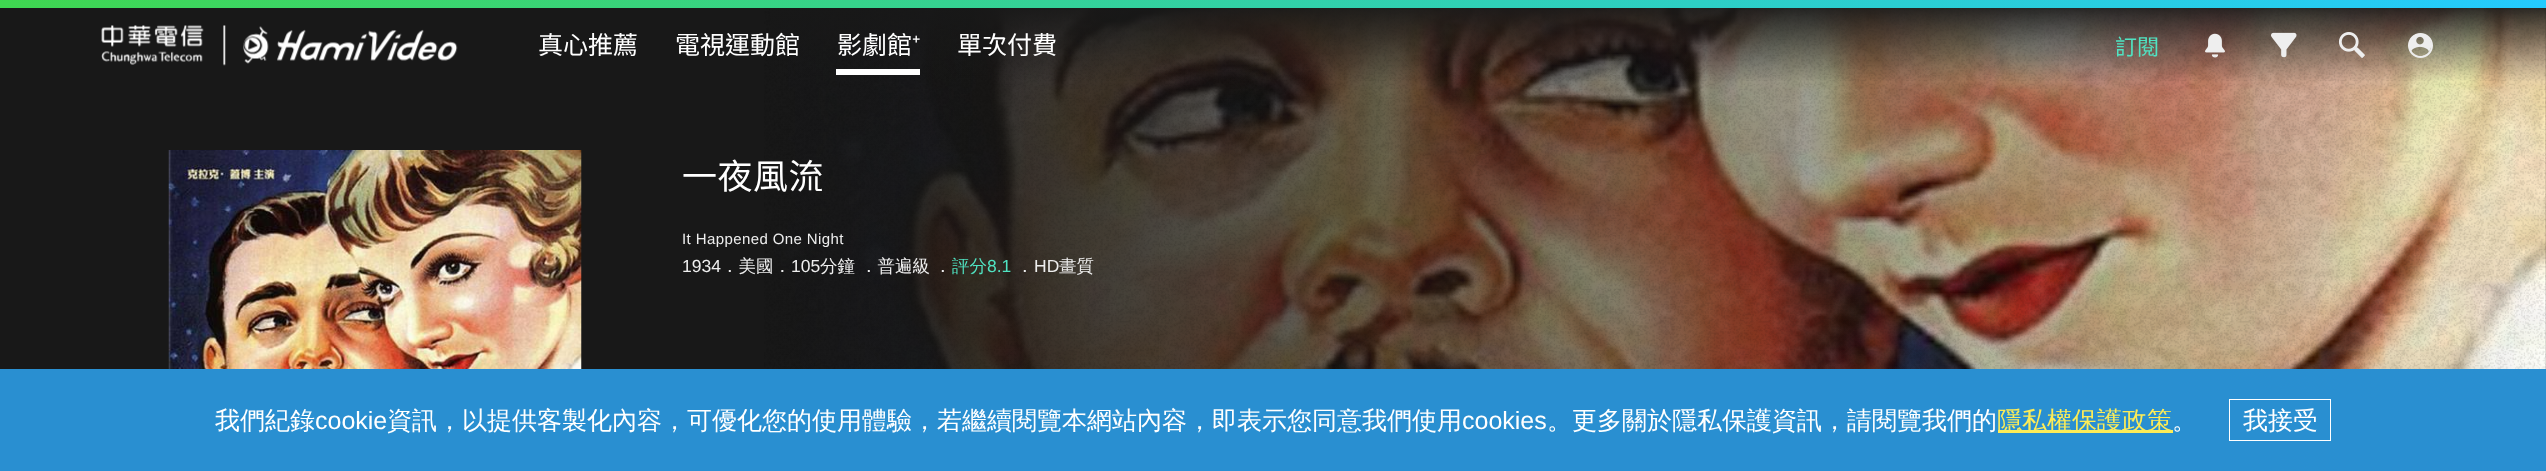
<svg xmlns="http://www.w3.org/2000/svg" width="2546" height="471">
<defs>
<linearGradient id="g1" gradientUnits="userSpaceOnUse" x1="1273" y1="0" x2="1273" y2="83"><stop offset="0" stop-color="#181818"/><stop offset="1" stop-color="#181818" stop-opacity="0"/></linearGradient>
<linearGradient id="g2" gradientUnits="userSpaceOnUse" x1="628" y1="-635" x2="1918" y2="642"><stop offset="0" stop-color="#3fd750"/><stop offset="1" stop-color="#24cbff"/></linearGradient>
</defs>
<rect width="100%" height="100%" fill="#181818"/>
<image x="774" y="8" width="1772" height="361" href="media/7.png"/>
<image x="764" y="8" width="1782" height="361" href="media/6.png"/>
<rect x="770" y="8" width="1776" height="73" fill="url(#g1)"/>
<rect width="2546" height="8" fill="url(#g2)"/>
<image x="101" y="25" width="357" height="41" href="media/1.png"/>
<text x="538" y="54" style="font-family:Noto Sans TC;font-size:25px;font-weight:100;fill:#fff">真心推薦</text>
<text x="675" y="54" style="font-family:Noto Sans TC;font-size:25px;font-weight:100;fill:#fff">電視運動館</text>
<rect x="836" y="69" width="84" height="6" fill="#fff"/>
<text x="837" y="54" style="font-family:Noto Sans TC;font-size:25px;font-weight:100;fill:#fff">影劇館</text>
<text x="912" y="54" style="font-family:Noto Sans;font-size:25px;fill:#fff">⁺</text>
<text x="957" y="54" style="font-family:Noto Sans TC;font-size:25px;font-weight:100;fill:#fff">單次付費</text>
<text x="2115" y="55" style="font-family:Noto Sans TC;font-size:22px;font-weight:100;fill:#50e3c2">訂閱</text>
<image x="2205" y="33" width="20" height="25" href="media/2.png"/>
<image x="2271" y="32" width="26" height="26" href="media/3.png"/>
<image x="2339" y="32" width="26" height="26" href="media/4.png"/>
<image x="2408" y="33" width="25" height="25" href="media/5.png"/>
<image x="168" y="150" width="414" height="219" href="media/8.png"/>
<text x="682" y="189" style="font-family:Noto Sans TC;font-size:35px;font-weight:100;letter-spacing:0.5px;fill:#fff">一夜風流</text>
<text x="682" y="244" style="font-family:Liberation Sans;font-size:15px;letter-spacing:0.4px;fill:#eee">It Happened One Night</text>
<text x="682" y="272" style="font-family:Liberation Sans;font-size:17.5px;fill:#eee">1934</text>
<text x="721" y="272" style="font-family:WenQuanYi Zen Hei;font-size:17.5px;font-weight:500;fill:#eee">．美國．</text>
<text x="791" y="272" style="font-family:Liberation Sans;font-size:17.5px;fill:#eee">105</text>
<text x="820" y="272" style="font-family:WenQuanYi Zen Hei;font-size:17.5px;font-weight:500;fill:#eee">分鐘</text>
<text x="860" y="272" style="font-family:WenQuanYi Zen Hei;font-size:17.5px;font-weight:500;fill:#eee">．普遍級</text>
<text x="934" y="272" style="font-family:WenQuanYi Zen Hei;font-size:17.5px;font-weight:500;fill:#eee">．</text>
<text x="952" y="272" style="font-family:WenQuanYi Zen Hei;font-size:17.5px;font-weight:500;fill:#50e3c2">評分</text>
<text x="987" y="272" style="font-family:Liberation Sans;font-size:17.5px;fill:#50e3c2">8.1</text>
<text x="1016" y="272" style="font-family:WenQuanYi Zen Hei;font-size:17.5px;font-weight:500;fill:#eee">．</text>
<text x="1034" y="272" style="font-family:Liberation Sans;font-size:17.5px;fill:#eee">HD</text>
<text x="1059" y="272" style="font-family:WenQuanYi Zen Hei;font-size:17.5px;font-weight:500;fill:#eee">畫質</text>
<rect y="369" width="2546" height="102" fill="#298fd1"/>
<text x="215" y="429" style="font-family:WenQuanYi Zen Hei;font-size:25px;font-weight:500;fill:#fff">我們紀錄</text>
<text x="315" y="429" style="font-family:Liberation Sans;font-size:25px;fill:#fff">cookie</text>
<text x="387" y="429" style="font-family:WenQuanYi Zen Hei;font-size:25px;font-weight:500;fill:#fff">資訊，以提供客製化內容，可優化您的使用體驗，若繼續閱覽本網站內容，即表示您同意我們使用</text>
<text x="1462" y="429" style="font-family:Liberation Sans;font-size:25px;fill:#fff">cookies</text>
<text x="1547" y="429" style="font-family:WenQuanYi Zen Hei;font-size:25px;font-weight:500;fill:#fff">。更多關於隱私保護資訊，請閱覽我們的</text>
<rect x="1998" y="430" width="175" height="3" fill="#fdec57"/>
<text x="1997" y="429" style="font-family:WenQuanYi Zen Hei;font-size:25px;font-weight:500;fill:#fdec57">隱私權保護政策</text>
<text x="2172" y="429" style="font-family:WenQuanYi Zen Hei;font-size:25px;font-weight:500;fill:#fff">。</text>
<rect x="2229.5" y="399.5" width="101" height="41" fill="none" stroke="#fff"/>
<text x="2243" y="429" style="font-family:WenQuanYi Zen Hei;font-size:25px;font-weight:500;fill:#fff">我接受</text>
</svg>
